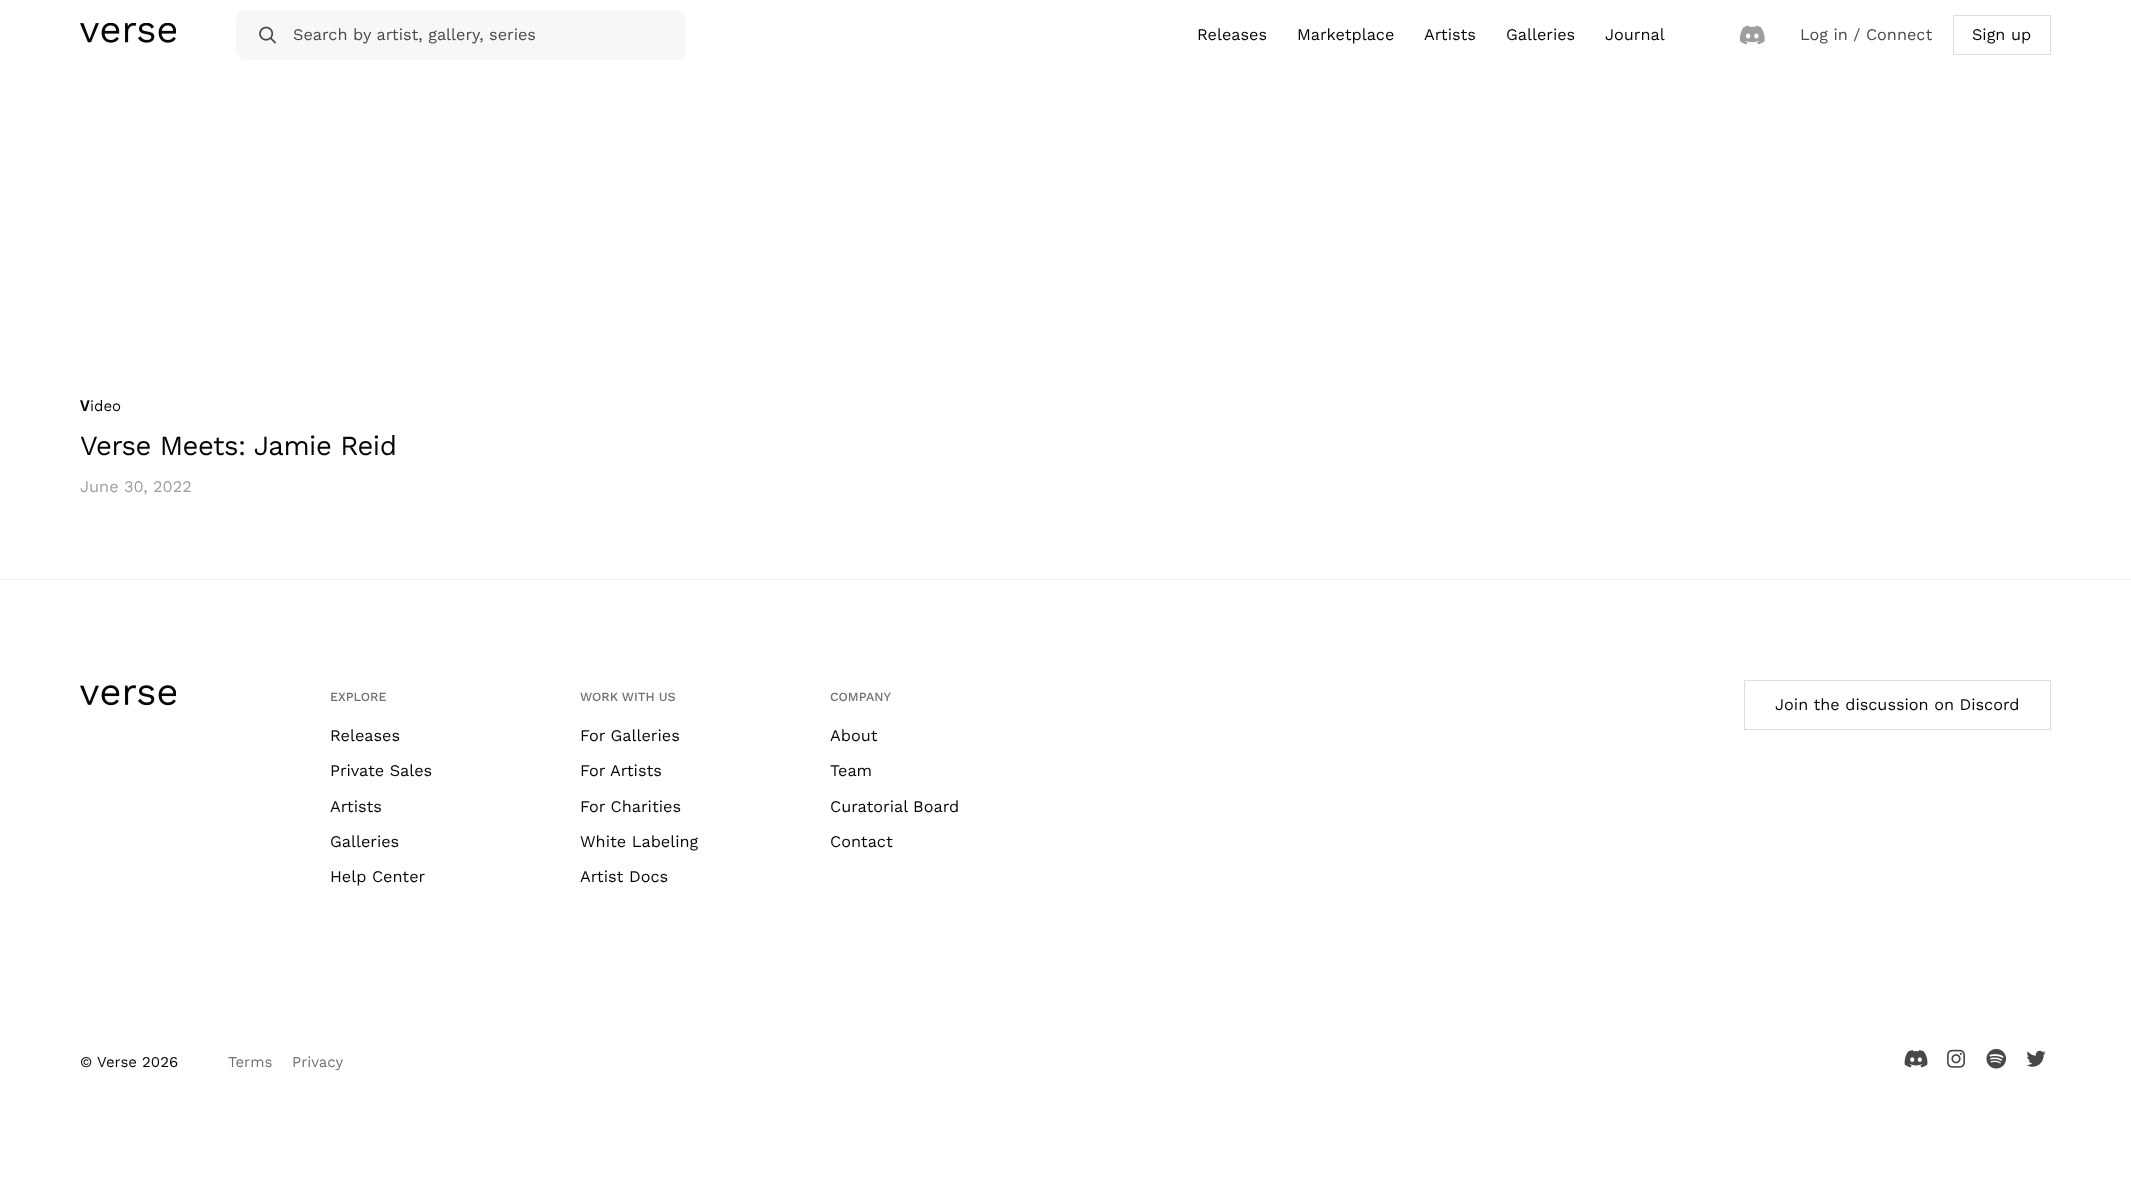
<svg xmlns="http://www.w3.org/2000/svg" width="2131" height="1182">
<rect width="100%" height="100%" fill="#fff"/>
<image x="80" y="23" width="96" height="20" href="media/1.png"/>
<rect x="236" y="10" width="450" height="50" rx="10" fill="#f7f7f7"/>
<image x="259" y="26" width="18" height="18" href="media/2.png"/>
<text x="293" y="40" style="font-family:Work Sans;font-size:16.25px;fill:#484848">Search by artist, gallery, series</text>
<text x="1197" y="40" style="font-family:Work Sans;font-size:16.25px;fill:#060606">Releases</text>
<text x="1297" y="40" style="font-family:Work Sans;font-size:16.25px;fill:#060606">Marketplace</text>
<text x="1424" y="40" style="font-family:Work Sans;font-size:16.25px;fill:#060606">Artists</text>
<text x="1506" y="40" style="font-family:Work Sans;font-size:16.25px;fill:#060606">Galleries</text>
<text x="1605" y="40" style="font-family:Work Sans;font-size:16.25px;fill:#060606">Journal</text>
<image x="1739" y="25" width="26" height="20" href="media/3.png"/>
<text x="1800" y="40" style="font-family:Work Sans;font-size:16.25px;fill:#484848">Log in / Connect</text>
<rect x="1953.5" y="15.5" width="97" height="39" fill="none" stroke="#ddd"/>
<text x="1972" y="40" style="font-family:Work Sans;font-size:16.25px;fill:#060606">Sign up</text>
<text x="80" y="411" style="font-family:Noto Sans;font-size:15px;font-weight:bold;fill:#060606">V</text>
<text x="90" y="411" style="font-family:Work Sans;font-size:15px;fill:#060606">ideo</text>
<text x="80" y="455" style="font-family:Work Sans;font-size:27.5px;letter-spacing:-0.5px;fill:#060606">Verse Meets: Jamie Reid</text>
<text x="80" y="492" style="font-family:Work Sans;font-size:16.25px;fill:#9e9e9e">June 30, 2022</text>
<rect y="579" width="2131" height="1" fill="#f2f2f2"/>
<image x="80" y="685" width="96" height="21" href="media/4.png"/>
<text x="330" y="701" style="font-family:Work Sans;font-size:12.5px;font-weight:500;fill:#717171">EXPLORE</text>
<text x="330" y="741" style="font-family:Work Sans;font-size:16.25px;fill:#060606">Releases</text>
<text x="330" y="776" style="font-family:Work Sans;font-size:16.25px;fill:#060606">Private Sales</text>
<text x="330" y="812" style="font-family:Work Sans;font-size:16.25px;fill:#060606">Artists</text>
<text x="330" y="847" style="font-family:Work Sans;font-size:16.25px;fill:#060606">Galleries</text>
<text x="330" y="882" style="font-family:Work Sans;font-size:16.25px;fill:#060606">Help Center</text>
<text x="580" y="701" style="font-family:Work Sans;font-size:12.5px;font-weight:500;fill:#717171">WORK WITH US</text>
<text x="580" y="741" style="font-family:Work Sans;font-size:16.25px;fill:#060606">For Galleries</text>
<text x="580" y="776" style="font-family:Work Sans;font-size:16.25px;fill:#060606">For Artists</text>
<text x="580" y="812" style="font-family:Work Sans;font-size:16.25px;fill:#060606">For Charities</text>
<text x="580" y="847" style="font-family:Work Sans;font-size:16.25px;fill:#060606">White Labeling</text>
<text x="580" y="882" style="font-family:Work Sans;font-size:16.25px;fill:#060606">Artist Docs</text>
<text x="830" y="701" style="font-family:Work Sans;font-size:12.5px;font-weight:500;fill:#717171">COMPANY</text>
<text x="830" y="741" style="font-family:Work Sans;font-size:16.25px;fill:#060606">About</text>
<text x="830" y="776" style="font-family:Work Sans;font-size:16.25px;fill:#060606">Team</text>
<text x="830" y="812" style="font-family:Work Sans;font-size:16.25px;fill:#060606">Curatorial Board</text>
<text x="830" y="847" style="font-family:Work Sans;font-size:16.25px;fill:#060606">Contact</text>
<rect x="1744.5" y="680.5" width="306" height="49" fill="none" stroke="#ddd"/>
<text x="1775" y="710" style="font-family:Work Sans;font-size:16.25px;fill:#060606">Join the discussion on Discord</text>
<text x="80" y="1067" style="font-family:Work Sans;font-size:15px;fill:#060606">© Verse 2026</text>
<text x="228" y="1067" style="font-family:Work Sans;font-size:15px;fill:#717171">Terms</text>
<text x="292" y="1067" style="font-family:Work Sans;font-size:15px;fill:#717171">Privacy</text>
<image x="1904" y="1050" width="24" height="18" href="media/5.png"/>
<image x="1947" y="1049" width="18" height="19" href="media/6.png"/>
<image x="1986" y="1048" width="21" height="21" href="media/7.png"/>
<image x="2026" y="1050" width="20" height="17" href="media/8.png"/>
</svg>
